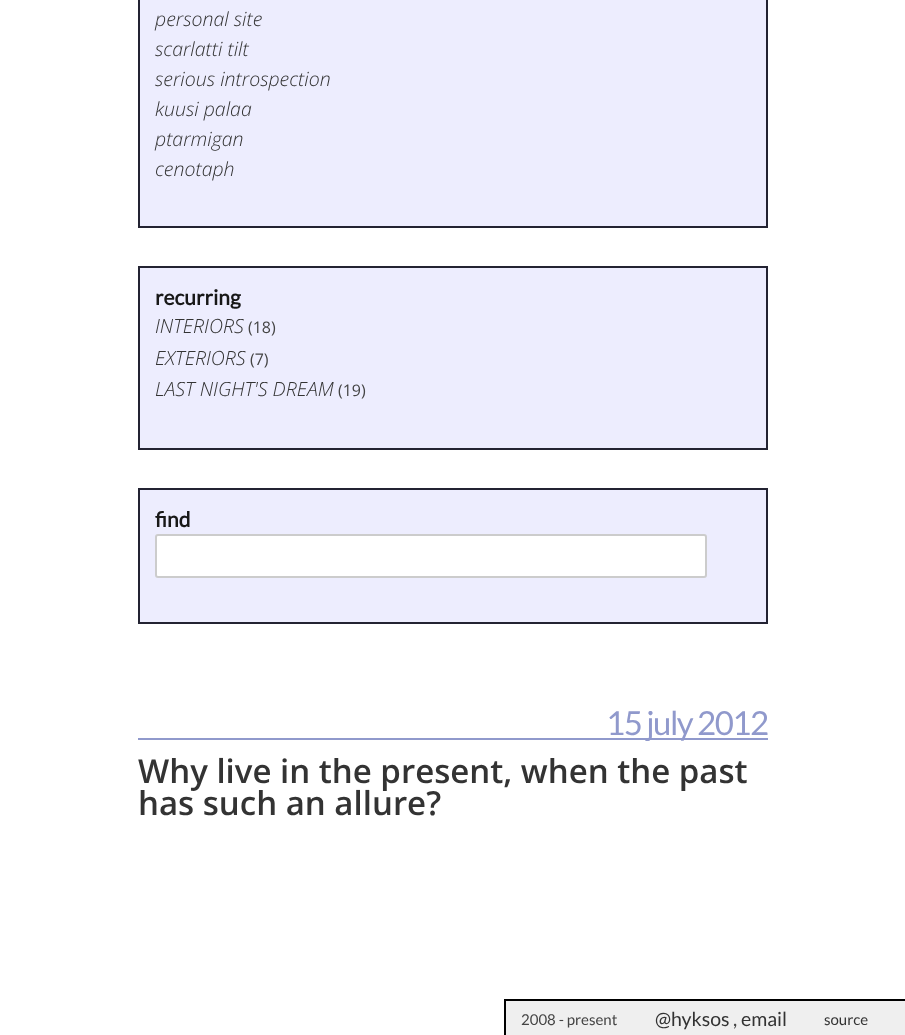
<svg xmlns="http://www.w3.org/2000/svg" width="905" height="1035">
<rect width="100%" height="100%" fill="#fff"/>
<rect x="139" y="-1" width="628" height="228" fill="#ededfe" stroke="#232332" stroke-width="2"/>
<text x="155" y="26" style="font-family:Open Sans;font-size:19.5px;font-weight:300;font-style:italic;fill:#333">personal site</text>
<text x="155" y="56" style="font-family:Open Sans;font-size:19.5px;font-weight:300;font-style:italic;fill:#333">scarlatti tilt</text>
<text x="155" y="86" style="font-family:Open Sans;font-size:19.5px;font-weight:300;font-style:italic;fill:#333">serious introspection</text>
<text x="155" y="116" style="font-family:Open Sans;font-size:19.5px;font-weight:300;font-style:italic;fill:#333">kuusi palaa</text>
<text x="155" y="146" style="font-family:Open Sans;font-size:19.5px;font-weight:300;font-style:italic;fill:#333">ptarmigan</text>
<text x="155" y="176" style="font-family:Open Sans;font-size:19.5px;font-weight:300;font-style:italic;fill:#333">cenotaph</text>
<rect x="139" y="267" width="628" height="182" fill="#ededfe" stroke="#232332" stroke-width="2"/>
<text x="155" y="305" style="font-family:Lato;font-size:21px;font-weight:bold;fill:#181818">recurring</text>
<text x="155" y="333" style="font-family:Open Sans;font-size:19.5px;font-weight:300;font-style:italic;fill:#333">INTERIORS</text>
<text x="248" y="333" style="font-family:Open Sans;font-size:16px;fill:#444">(18)</text>
<text x="155" y="365" style="font-family:Open Sans;font-size:19.5px;font-weight:300;font-style:italic;fill:#333">EXTERIORS</text>
<text x="250" y="365" style="font-family:Open Sans;font-size:16px;fill:#444">(7)</text>
<text x="155" y="396" style="font-family:Open Sans;font-size:19.5px;font-weight:300;font-style:italic;fill:#333">LAST NIGHT'S DREAM</text>
<text x="338" y="396" style="font-family:Open Sans;font-size:16px;fill:#444">(19)</text>
<rect x="139" y="489" width="628" height="134" fill="#ededfe" stroke="#232332" stroke-width="2"/>
<text x="155" y="527" style="font-family:Lato;font-size:21px;font-weight:bold;fill:#181818">find</text>
<rect x="156" y="535" width="550" height="42" rx="2" fill="#fff" stroke="#ccc" stroke-width="2"/>
<rect x="138" y="738" width="630" height="2" fill="#9099cc"/>
<text x="606" y="735" style="font-family:Lato;font-size:33px;letter-spacing:-1.5px;fill:#9099cc">15 july 2012</text>
<text x="138" y="783" style="font-family:Open Sans;font-size:33px;font-weight:600;fill:#333">Why live in the present, when the past</text>
<text x="138" y="815" style="font-family:Open Sans;font-size:33px;font-weight:600;fill:#333">has such an allure?</text>
<rect x="506" y="1001" width="399" height="34" fill="#efefef"/>
<rect x="504" y="999" width="401" height="2" fill="#000"/>
<rect x="504" y="999" width="2" height="36" fill="#000"/>
<text x="521" y="1025" style="font-family:Lato;font-size:15px;fill:#444">2008 - present</text>
<text x="655" y="1026" style="font-family:Lato;font-size:19.5px;fill:#333">@hyksos</text>
<text x="733" y="1026" style="font-family:Lato;font-size:19.5px;fill:#444">,</text>
<text x="741" y="1026" style="font-family:Lato;font-size:19.5px;fill:#333">email</text>
<text x="824" y="1025" style="font-family:Lato;font-size:15px;fill:#333">source</text>
</svg>
